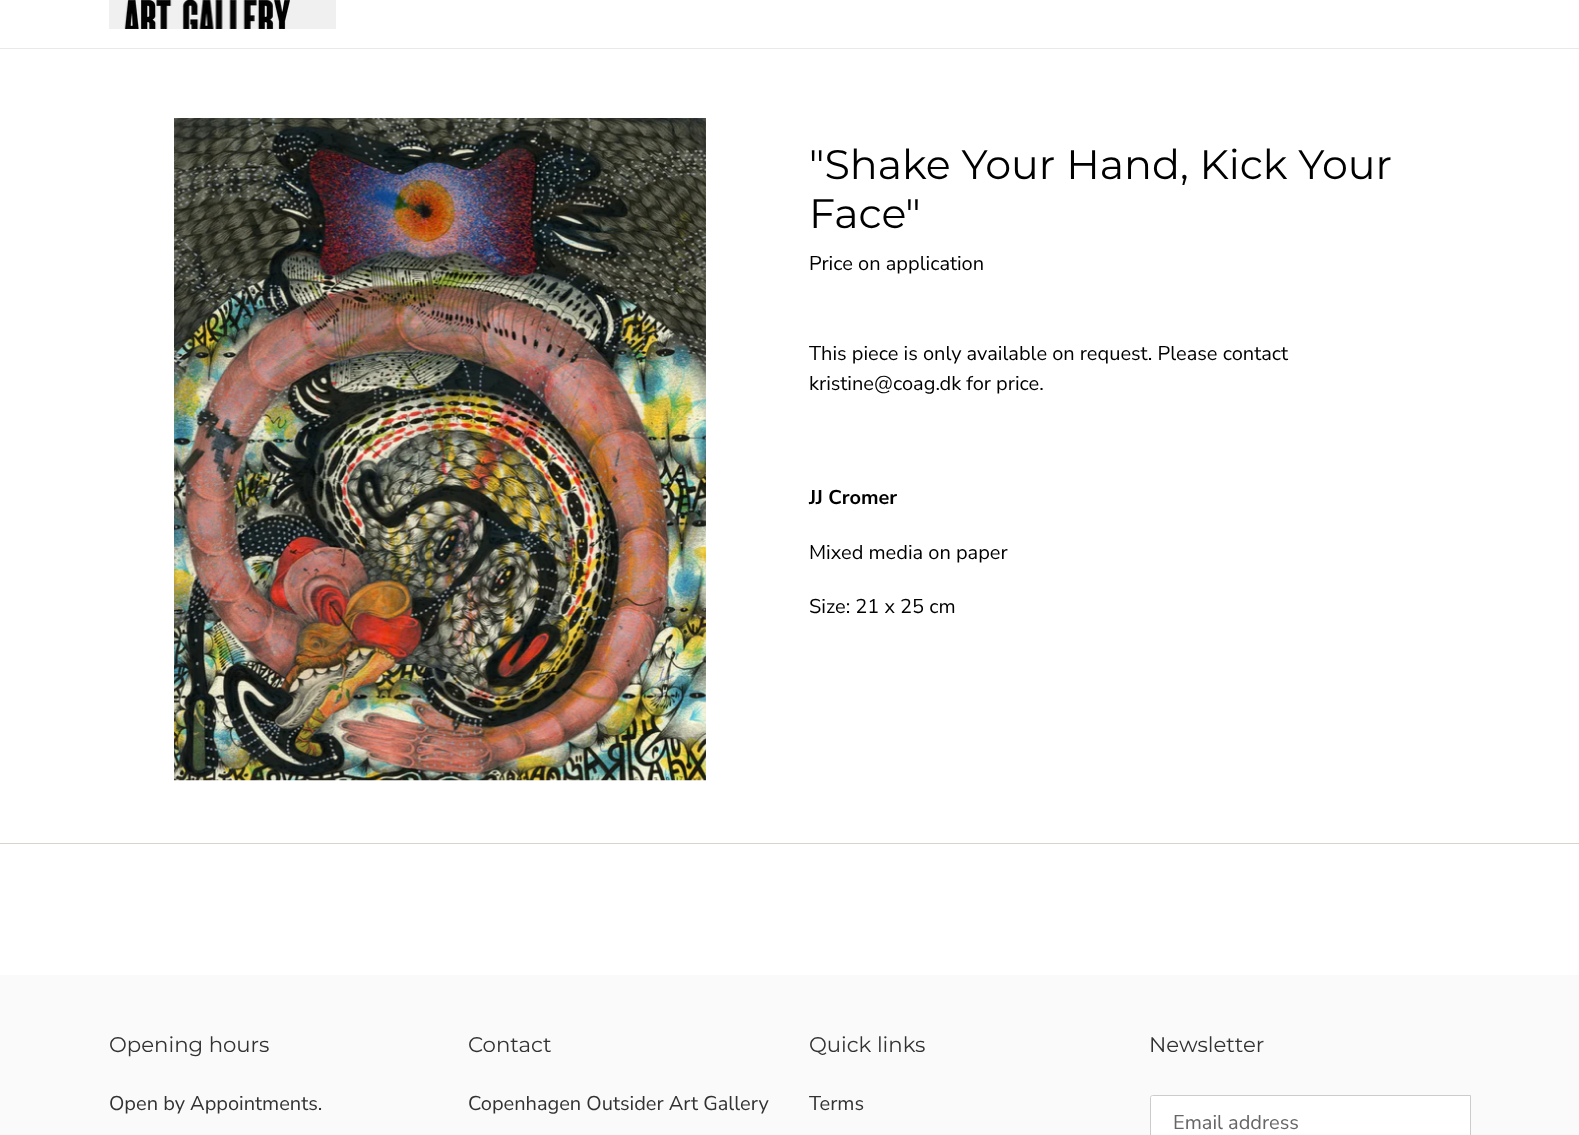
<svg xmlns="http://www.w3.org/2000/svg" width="1579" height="1135">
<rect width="100%" height="100%" fill="#fff"/>
<rect y="48" width="1579" height="1" fill="#e8e9eb"/>
<rect x="109" width="227" height="29" fill="#f0f0f0"/>
<image x="124" y="0" width="166" height="29" href="media/1.png"/>
<image x="174" y="118" width="532" height="663" href="media/2.png"/>
<text x="809" y="179" style="font-family:Montserrat;font-size:41.25px;fill:#000">"Shake Your Hand, Kick Your</text>
<text x="809" y="228" style="font-family:Montserrat;font-size:41.25px;fill:#000">Face"</text>
<text x="809" y="270" style="font-family:Nunito Sans;font-size:20px;fill:#000">Price on application</text>
<text x="809" y="360" style="font-family:Nunito Sans;font-size:20px;fill:#000">This piece is only available on request. Please contact</text>
<text x="809" y="390" style="font-family:Nunito Sans;font-size:20px;fill:#000">kristine@coag.dk for price.</text>
<text x="809" y="504" style="font-family:Nunito Sans;font-size:20px;font-weight:bold;fill:#000">JJ Cromer</text>
<text x="809" y="559" style="font-family:Nunito Sans;font-size:20px;fill:#000">Mixed media on paper</text>
<text x="809" y="613" style="font-family:Nunito Sans;font-size:20px;fill:#000">Size: 21 x 25 cm</text>
<rect y="843" width="1579" height="1" fill="#dbd2ca"/>
<rect y="975" width="1579" height="160" fill="#fafafa"/>
<text x="109" y="1052" style="font-family:Montserrat;font-size:21.25px;fill:#333232">Opening hours</text>
<text x="109" y="1110" style="font-family:Nunito Sans;font-size:20px;fill:#333232">Open by Appointments.</text>
<text x="468" y="1052" style="font-family:Montserrat;font-size:21.25px;fill:#333232">Contact</text>
<text x="468" y="1110" style="font-family:Nunito Sans;font-size:20px;fill:#333232">Copenhagen Outsider Art Gallery</text>
<text x="809" y="1052" style="font-family:Montserrat;font-size:21.25px;fill:#333232">Quick links</text>
<text x="809" y="1110" style="font-family:Nunito Sans;font-size:20px;fill:#333232">Terms</text>
<text x="1149" y="1052" style="font-family:Montserrat;font-size:21.25px;fill:#333232">Newsletter</text>
<path d="M1152.5 1095.5h318v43h-318c-1 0-2-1-2-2v-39c0-1 1-2 2-2z" fill="#fff" stroke="#ccc"/>
<text x="1173" y="1129" style="font-family:Nunito Sans;font-size:20px;fill:#666">Email address</text>
</svg>
